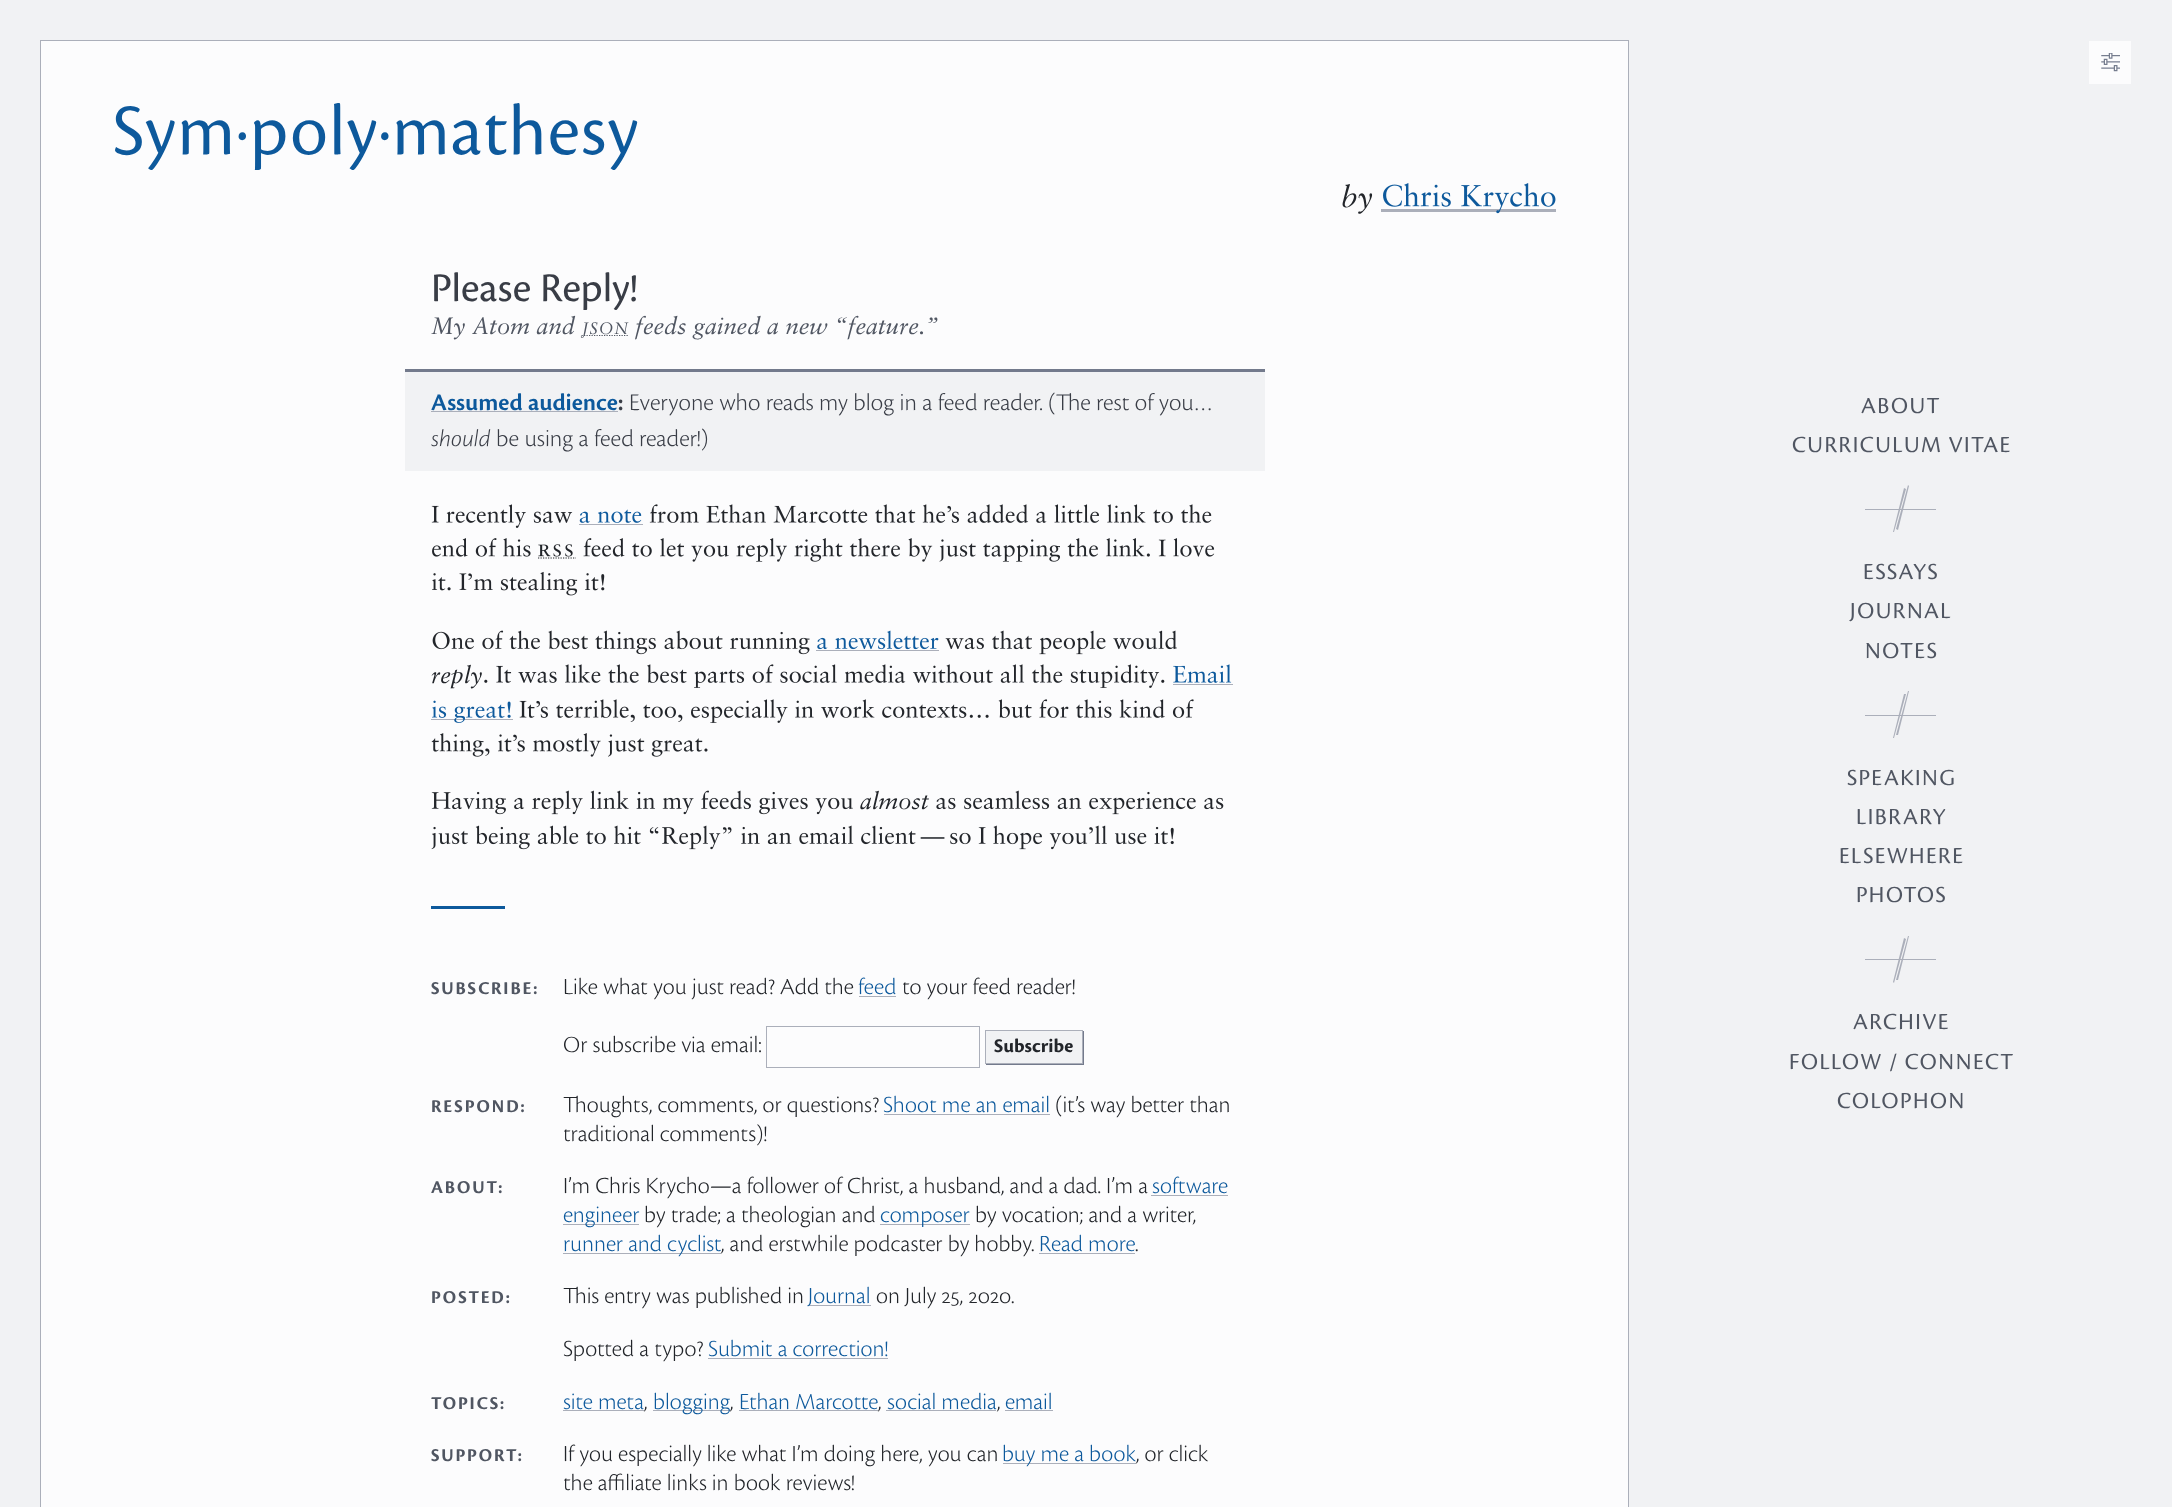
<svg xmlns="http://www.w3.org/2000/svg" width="2172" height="1507">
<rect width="100%" height="100%" fill="#f1f2f4"/>
<rect x="2089" y="41" width="42" height="43" fill="#fcfcfd"/>
<image x="2101" y="53" width="19" height="19" href="media/1.png"/>
<rect x="40.5" y="40.5" width="1588" height="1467" fill="#fcfcfd" stroke="#abafba"/>
<text x="113" y="154" style="font-family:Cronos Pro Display;font-size:75px;letter-spacing:1.9px;fill:#0d599c">Sym·poly·mathesy</text>
<text x="1341" y="207" style="font-family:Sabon;font-size:30px;font-style:italic;fill:#22252a">by</text>
<rect x="1381" y="209" width="175" height="3" fill="#abafba"/>
<image x="1383" y="183" width="173" height="31" href="media/2.png"/>
<text x="431" y="301" style="font-family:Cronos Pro;font-size:42.5px;fill:#393d46">Please Reply!</text>
<text x="431" y="334" style="font-family:Sabon;font-size:23.75px;font-style:italic;fill:#505662">My Atom and</text>
<path d="M581.5 335.5h47.5" fill="none" stroke="#505662" stroke-width="1.2" stroke-dasharray="1.25 1.25"/>
<text x="582" y="334" style="font-family:Sabon;font-size:16.5px;font-style:italic;letter-spacing:1px;fill:#505662">JSON</text>
<text x="635" y="334" style="font-family:Sabon;font-size:23.75px;font-style:italic;fill:#505662">feeds gained a new “feature.”</text>
<rect x="405" y="372" width="860" height="99" fill="#f1f2f4"/>
<rect x="405" y="369" width="860" height="3" fill="#737a8c"/>
<text x="431" y="410" style="font-family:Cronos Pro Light;font-size:24.9px;font-weight:600;fill:#0d599c">Assumed audience</text>
<text x="618" y="410" style="font-family:Cronos Pro Light;font-size:24.9px;font-weight:600;fill:#393d46">:</text>
<rect x="431" y="411" width="187" height="1" fill="#abafba"/>
<text x="629" y="410" style="font-family:Cronos Pro Light;font-size:24.9px;font-weight:300;fill:#393d46">Everyone who reads my blog in a feed reader. (The rest of you…</text>
<text x="431" y="446" style="font-family:Cronos Pro Light;font-size:24.9px;font-weight:300;font-style:italic;fill:#393d46">should</text>
<text x="496" y="446" style="font-family:Cronos Pro Light;font-size:24.9px;font-weight:300;fill:#393d46">be using a feed reader!)</text>
<image x="431" y="504" width="142" height="24" href="media/3.png"/>
<image x="579" y="509" width="63" height="14" href="media/4.png"/>
<image x="649" y="504" width="563" height="19" href="media/5.png"/>
<rect x="579" y="524" width="64" height="1" fill="#abafba"/>
<image x="432" y="538" width="99" height="19" href="media/6.png"/>
<image x="538" y="544" width="35" height="13" href="media/7.png"/>
<image x="583" y="538" width="632" height="24" href="media/8.png"/>
<path d="M538 558h38" fill="none" stroke="#22252a" stroke-width="1.2" stroke-dasharray="1.25 1.25"/>
<image x="432" y="571" width="173" height="25" href="media/9.png"/>
<image x="432" y="630" width="378" height="25" href="media/10.png"/>
<image x="817" y="630" width="122" height="20" href="media/11.png"/>
<image x="945" y="630" width="232" height="25" href="media/12.png"/>
<rect x="816" y="650" width="123" height="1" fill="#abafba"/>
<text x="431" y="683" style="font-family:Sabon;font-size:23.75px;font-style:italic;fill:#22252a">reply</text>
<image x="484" y="664" width="681" height="24" href="media/13.png"/>
<image x="1173" y="664" width="59" height="19" href="media/14.png"/>
<rect x="1173" y="684" width="60" height="1" fill="#abafba"/>
<rect x="431" y="719" width="82" height="1" fill="#abafba"/>
<image x="432" y="700" width="79" height="23" href="media/15.png"/>
<image x="519" y="699" width="675" height="24" href="media/16.png"/>
<image x="431" y="733" width="277" height="24" href="media/17.png"/>
<image x="431" y="790" width="422" height="25" href="media/18.png"/>
<text x="860" y="809" style="font-family:Sabon;font-size:23.75px;font-style:italic;fill:#22252a">almost</text>
<image x="936" y="790" width="288" height="25" href="media/19.png"/>
<image x="431" y="825" width="210" height="25" href="media/20.png"/>
<image x="649" y="827" width="10" height="7" href="media/21.png"/>
<image x="662" y="825" width="512" height="25" href="media/22.png"/>
<rect x="431" y="906" width="74" height="3" fill="#0d599c"/>
<text x="431" y="994" style="font-family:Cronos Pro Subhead;font-size:18.75px;font-weight:bold;letter-spacing:1.9px;fill:#505662">SUBSCRIBE:</text>
<text x="563" y="994" style="font-family:Cronos Pro Light;font-size:24px;font-weight:300;fill:#22252a">Like what you just read? Add the</text>
<text x="858" y="994" style="font-family:Cronos Pro Light;font-size:24px;font-weight:300;fill:#0d599c">feed</text>
<rect x="859" y="996" width="37" height="1" fill="#abafba"/>
<text x="902" y="994" style="font-family:Cronos Pro Light;font-size:24px;font-weight:300;fill:#22252a">to your feed reader!</text>
<text x="563" y="1052" style="font-family:Cronos Pro Light;font-size:24px;font-weight:300;fill:#22252a">Or subscribe via email:</text>
<rect x="766.5" y="1026.5" width="213" height="41" fill="none" stroke="#abafba"/>
<path d="M986 1064v1h98v-34h-2v33z" fill="#737a8c"/>
<rect x="985.5" y="1030.5" width="97" height="33" fill="#f1f2f4" stroke="#abafba"/>
<text x="994" y="1052" style="font-family:Cronos Pro;font-size:20px;font-weight:bold;fill:#22252a">Subscribe</text>
<text x="431" y="1112" style="font-family:Cronos Pro Subhead;font-size:18.75px;font-weight:bold;letter-spacing:1.9px;fill:#505662">RESPOND:</text>
<text x="563" y="1112" style="font-family:Cronos Pro Light;font-size:24px;font-weight:300;fill:#22252a">Thoughts, comments, or questions?</text>
<text x="883" y="1112" style="font-family:Cronos Pro Light;font-size:24px;font-weight:300;fill:#0d599c">Shoot me an email</text>
<rect x="884" y="1114" width="166" height="1" fill="#abafba"/>
<text x="1055" y="1112" style="font-family:Cronos Pro Light;font-size:24px;font-weight:300;fill:#22252a">(it’s way better than</text>
<text x="563" y="1141" style="font-family:Cronos Pro Light;font-size:24px;font-weight:300;fill:#22252a">traditional comments)!</text>
<text x="431" y="1193" style="font-family:Cronos Pro Subhead;font-size:18.75px;font-weight:bold;letter-spacing:1.9px;fill:#505662">ABOUT:</text>
<text x="563" y="1193" style="font-family:Cronos Pro Light;font-size:24px;font-weight:300;fill:#22252a">I’m Chris Krycho—a follower of Christ, a husband, and a dad. I’m a</text>
<text x="1152" y="1193" style="font-family:Cronos Pro Light;font-size:24px;font-weight:300;fill:#0d599c">software</text>
<rect x="1151" y="1195" width="77" height="1" fill="#abafba"/>
<rect x="563" y="1224" width="76" height="1" fill="#abafba"/>
<text x="563" y="1222" style="font-family:Cronos Pro Light;font-size:24px;font-weight:300;fill:#0d599c">engineer</text>
<text x="644" y="1222" style="font-family:Cronos Pro Light;font-size:24px;font-weight:300;fill:#22252a">by trade; a theologian and</text>
<rect x="880" y="1224" width="90" height="1" fill="#abafba"/>
<text x="880" y="1222" style="font-family:Cronos Pro Light;font-size:24px;font-weight:300;fill:#0d599c">composer</text>
<text x="975" y="1222" style="font-family:Cronos Pro Light;font-size:24px;font-weight:300;fill:#22252a">by vocation; and a writer,</text>
<rect x="563" y="1253" width="158" height="1" fill="#abafba"/>
<text x="563" y="1251" style="font-family:Cronos Pro Light;font-size:24px;font-weight:300;fill:#0d599c">runner and cyclist</text>
<text x="721" y="1251" style="font-family:Cronos Pro Light;font-size:24px;font-weight:300;fill:#22252a">, and erstwhile podcaster by hobby.</text>
<text x="1039" y="1251" style="font-family:Cronos Pro Light;font-size:24px;font-weight:300;fill:#0d599c">Read more</text>
<rect x="1039" y="1253" width="96" height="1" fill="#abafba"/>
<text x="1135" y="1251" style="font-family:Cronos Pro Light;font-size:24px;font-weight:300;fill:#22252a">.</text>
<text x="431" y="1303" style="font-family:Cronos Pro Subhead;font-size:18.75px;font-weight:bold;letter-spacing:1.9px;fill:#505662">POSTED:</text>
<text x="563" y="1303" style="font-family:Cronos Pro Light;font-size:24px;font-weight:300;fill:#22252a">This entry was published in</text>
<rect x="809" y="1305" width="62" height="1" fill="#abafba"/>
<text x="808" y="1303" style="font-family:Cronos Pro Light;font-size:24px;font-weight:300;fill:#0d599c">Journal</text>
<text x="876" y="1303" style="font-family:Cronos Pro Light;font-size:24px;font-weight:300;fill:#22252a">on</text>
<text x="905" y="1303" style="font-family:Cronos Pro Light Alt;font-size:24px;font-weight:300;fill:#22252a">July 25, 2020</text>
<text x="1011" y="1303" style="font-family:Cronos Pro Light;font-size:24px;font-weight:300;fill:#22252a">.</text>
<text x="563" y="1356" style="font-family:Cronos Pro Light;font-size:24px;font-weight:300;fill:#22252a">Spotted a typo?</text>
<text x="708" y="1356" style="font-family:Cronos Pro Light;font-size:24px;font-weight:300;fill:#0d599c">Submit a correction!</text>
<rect x="708" y="1358" width="180" height="1" fill="#abafba"/>
<text x="431" y="1409" style="font-family:Cronos Pro Subhead;font-size:18.75px;font-weight:bold;letter-spacing:1.9px;fill:#505662">TOPICS:</text>
<text x="563" y="1409" style="font-family:Cronos Pro Light;font-size:24px;font-weight:300;fill:#0d599c">site meta</text>
<rect x="563" y="1410" width="81" height="1" fill="#abafba"/>
<text x="644" y="1409" style="font-family:Cronos Pro Light;font-size:24px;font-weight:300;fill:#22252a">,</text>
<rect x="653" y="1410" width="77" height="1" fill="#abafba"/>
<text x="653" y="1409" style="font-family:Cronos Pro Light;font-size:24px;font-weight:300;fill:#0d599c">blogging</text>
<text x="730" y="1409" style="font-family:Cronos Pro Light;font-size:24px;font-weight:300;fill:#22252a">,</text>
<text x="739" y="1409" style="font-family:Cronos Pro Light;font-size:24px;font-weight:300;fill:#0d599c">Ethan Marcotte</text>
<rect x="739" y="1410" width="139" height="1" fill="#abafba"/>
<text x="878" y="1409" style="font-family:Cronos Pro Light;font-size:24px;font-weight:300;fill:#22252a">,</text>
<text x="887" y="1409" style="font-family:Cronos Pro Light;font-size:24px;font-weight:300;fill:#0d599c">social media</text>
<text x="997" y="1409" style="font-family:Cronos Pro Light;font-size:24px;font-weight:300;fill:#22252a">,</text>
<rect x="886" y="1410" width="110" height="1" fill="#abafba"/>
<text x="1005" y="1409" style="font-family:Cronos Pro Light;font-size:24px;font-weight:300;fill:#0d599c">email</text>
<rect x="1005" y="1410" width="48" height="1" fill="#abafba"/>
<text x="431" y="1461" style="font-family:Cronos Pro Subhead;font-size:18.75px;font-weight:bold;letter-spacing:1.9px;fill:#505662">SUPPORT:</text>
<text x="563" y="1461" style="font-family:Cronos Pro Light;font-size:24px;font-weight:300;fill:#22252a">If you especially like what I’m doing here, you can</text>
<rect x="1003" y="1463" width="133" height="1" fill="#abafba"/>
<text x="1002" y="1461" style="font-family:Cronos Pro Light;font-size:24px;font-weight:300;fill:#0d599c">buy me a book</text>
<text x="1136" y="1461" style="font-family:Cronos Pro Light;font-size:24px;font-weight:300;fill:#22252a">, or click</text>
<text x="563" y="1490" style="font-family:Cronos Pro Light;font-size:24px;font-weight:300;fill:#22252a">the affiliate links in book reviews!</text>
<text x="1861" y="413" style="font-family:Cronos Pro Subhead;font-size:24px;letter-spacing:1.5px;fill:#505662">ABOUT</text>
<text x="1792" y="452" style="font-family:Cronos Pro Subhead;font-size:24px;letter-spacing:1.5px;fill:#505662">CURRICULUM VITAE</text>
<rect x="1865" y="509" width="71" height="1" fill="#abafba"/>
<path d="M1908 485l1 1l-11 44l-2-1z" fill="#abafba"/>
<path d="M1904 488l2 1l-12 43h-1z" fill="#abafba"/>
<text x="1863" y="579" style="font-family:Cronos Pro Subhead;font-size:24px;letter-spacing:1.5px;fill:#505662">ESSAYS</text>
<text x="1850" y="618" style="font-family:Cronos Pro Subhead;font-size:24px;letter-spacing:1.5px;fill:#505662">JOURNAL</text>
<text x="1865" y="658" style="font-family:Cronos Pro Subhead;font-size:24px;letter-spacing:1.5px;fill:#505662">NOTES</text>
<rect x="1865" y="715" width="71" height="1" fill="#abafba"/>
<path d="M1908 691h1l-11 44h-2z" fill="#abafba"/>
<path d="M1904 694h2l-12 44h-1z" fill="#abafba"/>
<text x="1847" y="785" style="font-family:Cronos Pro Subhead;font-size:24px;letter-spacing:1.5px;fill:#505662">SPEAKING</text>
<text x="1856" y="824" style="font-family:Cronos Pro Subhead;font-size:24px;letter-spacing:1.5px;fill:#505662">LIBRARY</text>
<text x="1839" y="863" style="font-family:Cronos Pro Subhead;font-size:24px;letter-spacing:1.5px;fill:#505662">ELSEWHERE</text>
<text x="1856" y="902" style="font-family:Cronos Pro Subhead;font-size:24px;letter-spacing:1.5px;fill:#505662">PHOTOS</text>
<rect x="1865" y="959" width="71" height="1" fill="#abafba"/>
<path d="M1908 936h1l-11 44h-2z" fill="#abafba"/>
<path d="M1904 938l2 1l-12 44l-1-1z" fill="#abafba"/>
<text x="1853" y="1029" style="font-family:Cronos Pro Subhead;font-size:24px;letter-spacing:1.5px;fill:#505662">ARCHIVE</text>
<text x="1789" y="1069" style="font-family:Cronos Pro Subhead;font-size:24px;letter-spacing:1.5px;fill:#505662">FOLLOW / CONNECT</text>
<text x="1837" y="1108" style="font-family:Cronos Pro Subhead;font-size:24px;letter-spacing:1.5px;fill:#505662">COLOPHON</text>
</svg>
